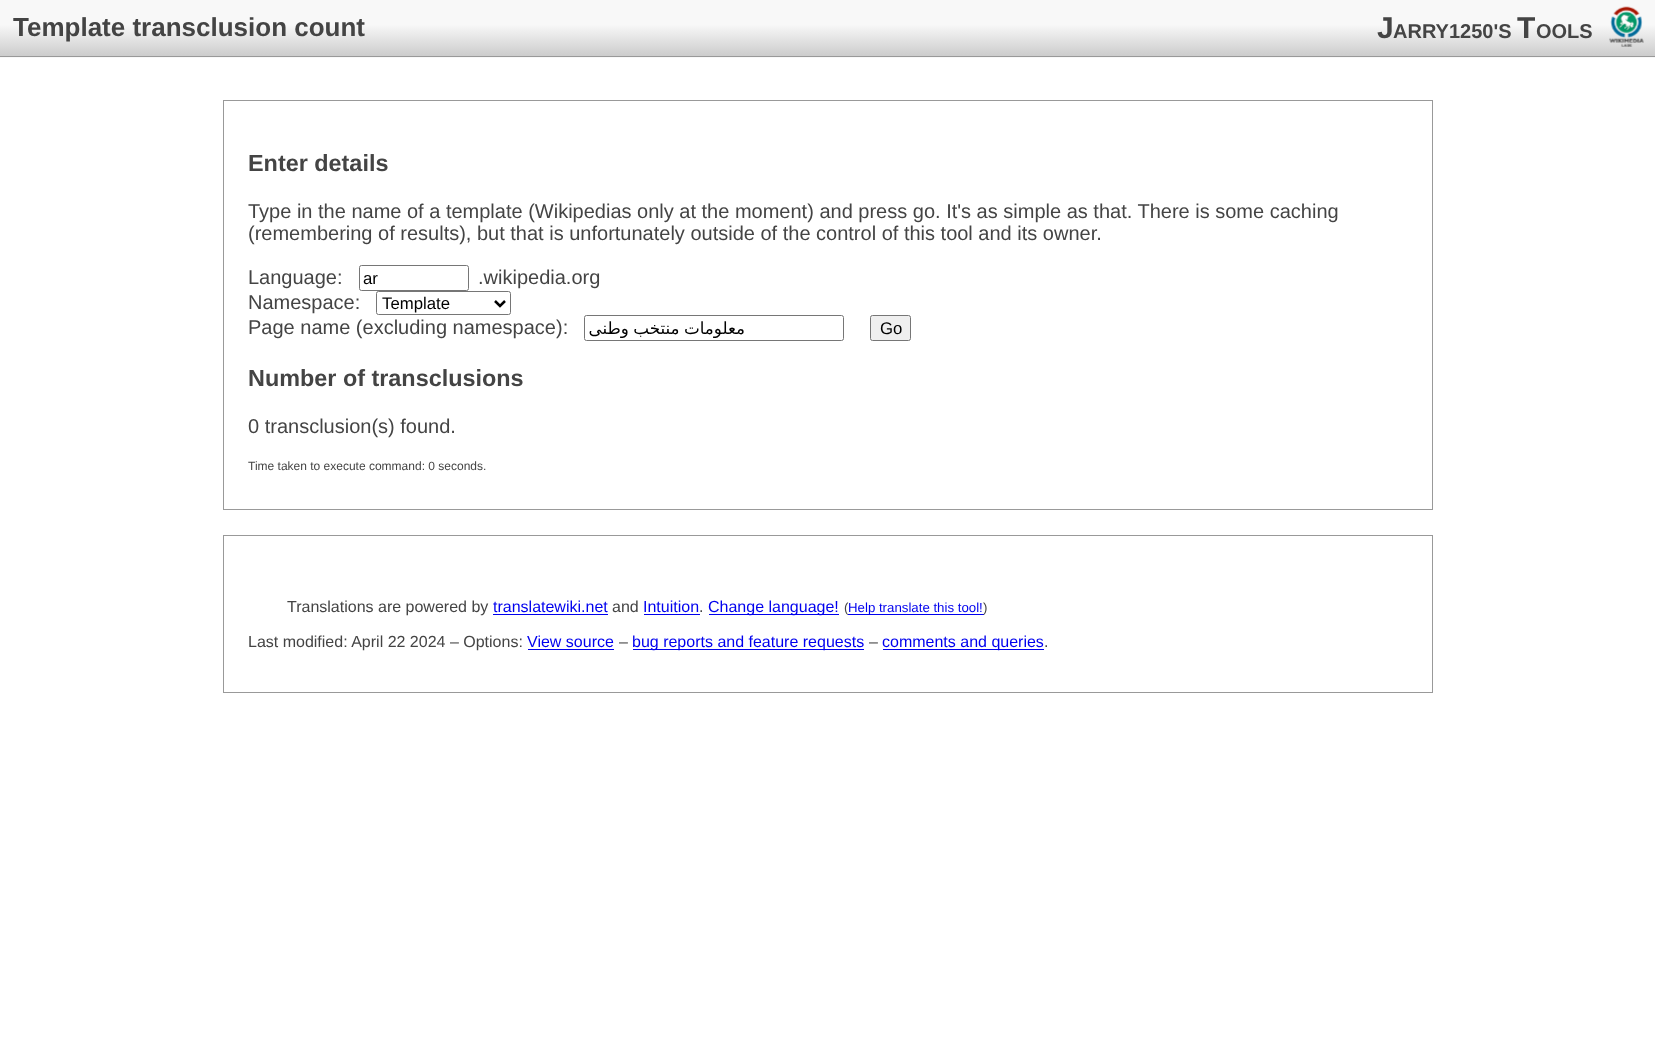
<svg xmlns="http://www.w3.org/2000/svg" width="1655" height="1064">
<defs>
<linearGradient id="g1" gradientUnits="userSpaceOnUse" x1="828" y1="0" x2="828" y2="56"><stop offset="0" stop-color="#f8f8f8"/><stop offset="0.44" stop-color="#f8f8f8"/><stop offset="1" stop-color="#ccc"/></linearGradient>
<linearGradient id="g2" gradientUnits="userSpaceOnUse" x1="828" y1="56" x2="828" y2="113"><stop offset="0" stop-color="#f8f8f8"/><stop offset="0.44" stop-color="#f8f8f8"/><stop offset="1" stop-color="#ccc"/></linearGradient>
</defs>
<rect width="100%" height="100%" fill="#fff"/>
<rect width="1655" height="56" fill="url(#g1)"/>
<rect y="57" width="1655" height="1" fill="url(#g2)"/>
<rect y="56" width="1655" height="1" fill="#999"/>
<text x="13" y="36" style="font-family:Liberation Sans;font-size:26px;font-weight:bold;fill:#444">Template transclusion count</text>
<text x="1377" y="38" style="font-family:Liberation Sans;font-size:30px;font-weight:bold;fill:#444">J</text>
<text x="1393" y="38" style="font-family:Liberation Sans;font-size:20px;font-weight:bold;fill:#444">ARRY1250'S</text>
<text x="1517" y="38" style="font-family:Liberation Sans;font-size:30px;font-weight:bold;fill:#444">T</text>
<text x="1536" y="38" style="font-family:Liberation Sans;font-size:20px;font-weight:bold;fill:#444">OOLS</text>
<image x="1609" y="6" width="35" height="41" href="media/1.png"/>
<rect x="223.5" y="100.5" width="1209" height="409" fill="none" stroke="#999"/>
<text x="248" y="171" style="font-family:Liberation Sans;font-size:23.4px;font-weight:bold;fill:#444">Enter details</text>
<text x="248" y="218" style="font-family:Liberation Sans;font-size:20px;fill:#444">Type in the name of a template (Wikipedias only at the moment) and press go. It's as simple as that. There is some caching</text>
<text x="248" y="240" style="font-family:Liberation Sans;font-size:20px;fill:#444">(remembering of results), but that is unfortunately outside of the control of this tool and its owner.</text>
<text x="248" y="284" style="font-family:Liberation Sans;font-size:20px;fill:#444">Language:</text>
<rect x="359.5" y="265.5" width="109" height="25" rx="2" fill="none" stroke="#767676"/>
<text x="363" y="284" style="font-family:Liberation Sans;font-size:16.75px;fill:#000">ar</text>
<text x="478" y="284" style="font-family:Liberation Sans;font-size:20px;fill:#444">.wikipedia.org</text>
<text x="248" y="309" style="font-family:Liberation Sans;font-size:20px;fill:#444">Namespace:</text>
<rect x="376.5" y="291.5" width="134" height="23" rx="2" fill="none" stroke="#767676"/>
<path d="M495 301l5 5l5-5" fill="none" stroke="#000" stroke-width="2.5"/>
<text x="382" y="309" style="font-family:Liberation Sans;font-size:16.75px;fill:#000">Template</text>
<text x="248" y="334" style="font-family:Liberation Sans;font-size:20px;fill:#444">Page name (excluding namespace):</text>
<rect x="584.5" y="315.5" width="259" height="25" rx="2" fill="none" stroke="#767676"/>
<text x="745" y="334" word-spacing="-1" style="font-family:DejaVu Sans;font-size:16.75px;direction:rtl;fill:#000">معلومات منتخب وطنى</text>
<rect x="870.5" y="315.5" width="40" height="25" rx="2" fill="#efefef" stroke="#767676"/>
<text x="880" y="334" style="font-family:Liberation Sans;font-size:16.75px;fill:#000">Go</text>
<text x="248" y="386" style="font-family:Liberation Sans;font-size:23.4px;font-weight:bold;fill:#444">Number of transclusions</text>
<text x="248" y="433" style="font-family:Liberation Sans;font-size:20px;fill:#444">0 transclusion(s) found.</text>
<text x="248" y="470" style="font-family:Liberation Sans;font-size:12px;fill:#444">Time taken to execute command: 0 seconds.</text>
<rect x="223.5" y="535.5" width="1209" height="157" fill="none" stroke="#999"/>
<text x="287" y="612" style="font-family:Liberation Sans;font-size:16px;fill:#444">Translations are powered by</text>
<text x="493" y="612" style="font-family:Liberation Sans;font-size:16px;fill:#00e">translatewiki.net</text>
<rect x="493" y="614" width="115" height="1" fill="#00e"/>
<text x="612" y="612" style="font-family:Liberation Sans;font-size:16px;fill:#444">and</text>
<text x="643" y="612" style="font-family:Liberation Sans;font-size:16px;fill:#00e">Intuition</text>
<rect x="644" y="614" width="56" height="1" fill="#00e"/>
<text x="699" y="612" style="font-family:Liberation Sans;font-size:16px;fill:#444">.</text>
<rect x="709" y="614" width="130" height="1" fill="#00e"/>
<text x="708" y="612" style="font-family:Liberation Sans;font-size:16px;fill:#00e">Change language!</text>
<text x="844" y="612" style="font-family:Liberation Sans;font-size:13.25px;fill:#444">(</text>
<rect x="848" y="614" width="136" height="1" fill="#00e"/>
<text x="848" y="612" style="font-family:Liberation Sans;font-size:13.25px;fill:#00e">Help translate this tool!</text>
<text x="983" y="612" style="font-family:Liberation Sans;font-size:13.25px;fill:#444">)</text>
<text x="248" y="647" style="font-family:Liberation Sans;font-size:16px;fill:#444">Last modified: April 22 2024 – Options:</text>
<text x="527" y="647" style="font-family:Liberation Sans;font-size:16px;fill:#00e">View source</text>
<rect x="528" y="649" width="86" height="1" fill="#00e"/>
<text x="619" y="647" style="font-family:Liberation Sans;font-size:16px;fill:#444">–</text>
<rect x="633" y="649" width="231" height="1" fill="#00e"/>
<text x="632" y="647" style="font-family:Liberation Sans;font-size:16px;fill:#00e">bug reports and feature requests</text>
<text x="869" y="647" style="font-family:Liberation Sans;font-size:16px;fill:#444">–</text>
<rect x="883" y="649" width="161" height="1" fill="#00e"/>
<text x="882" y="647" style="font-family:Liberation Sans;font-size:16px;fill:#00e">comments and queries</text>
<text x="1044" y="647" style="font-family:Liberation Sans;font-size:16px;fill:#444">.</text>
</svg>
